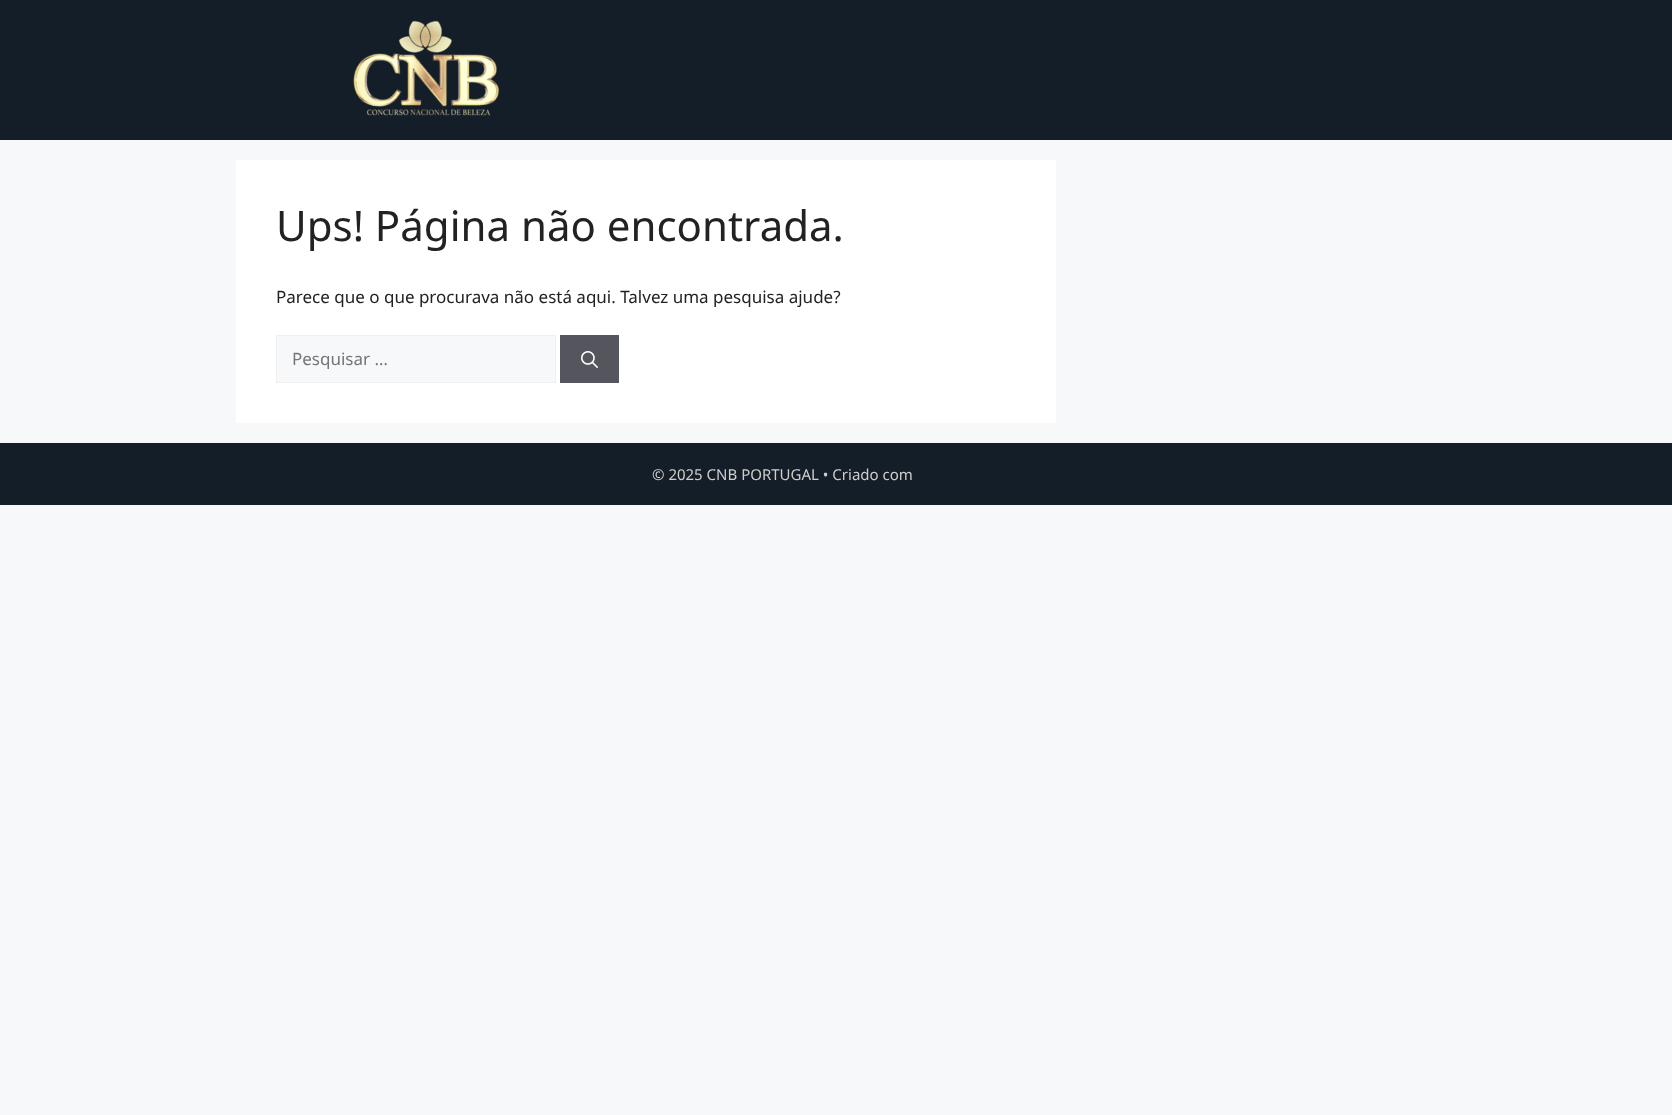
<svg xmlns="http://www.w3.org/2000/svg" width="1672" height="1115">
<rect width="100%" height="100%" fill="#f7f8f9"/>
<rect width="1672" height="140" fill="#131e29"/>
<image x="353" y="20" width="147" height="96" href="media/1.png"/>
<rect x="236" y="160" width="820" height="263" fill="#fff"/>
<text x="276" y="241" style="font-family:Noto Sans;font-size:42px;fill:#222">Ups! Página não encontrada.</text>
<text x="276" y="303" style="font-family:Noto Sans;font-size:17px;fill:#222">Parece que o que procurava não está aqui. Talvez uma pesquisa ajude?</text>
<rect x="276.5" y="335.5" width="279" height="47" fill="#f7f8f9" stroke="#f0f0f0"/>
<text x="292" y="365" style="font-family:Noto Sans;font-size:17px;fill:#757575">Pesquisar …</text>
<rect x="560" y="335" width="59" height="48" fill="#55555e"/>
<image x="581" y="351" width="17" height="17" href="media/2.png"/>
<rect y="443" width="1672" height="62" fill="#131e29"/>
<text x="652" y="480" style="font-family:Noto Sans;font-size:15px;fill:#d3ceca">© 2025 CNB PORTUGAL • Criado com</text>
</svg>
